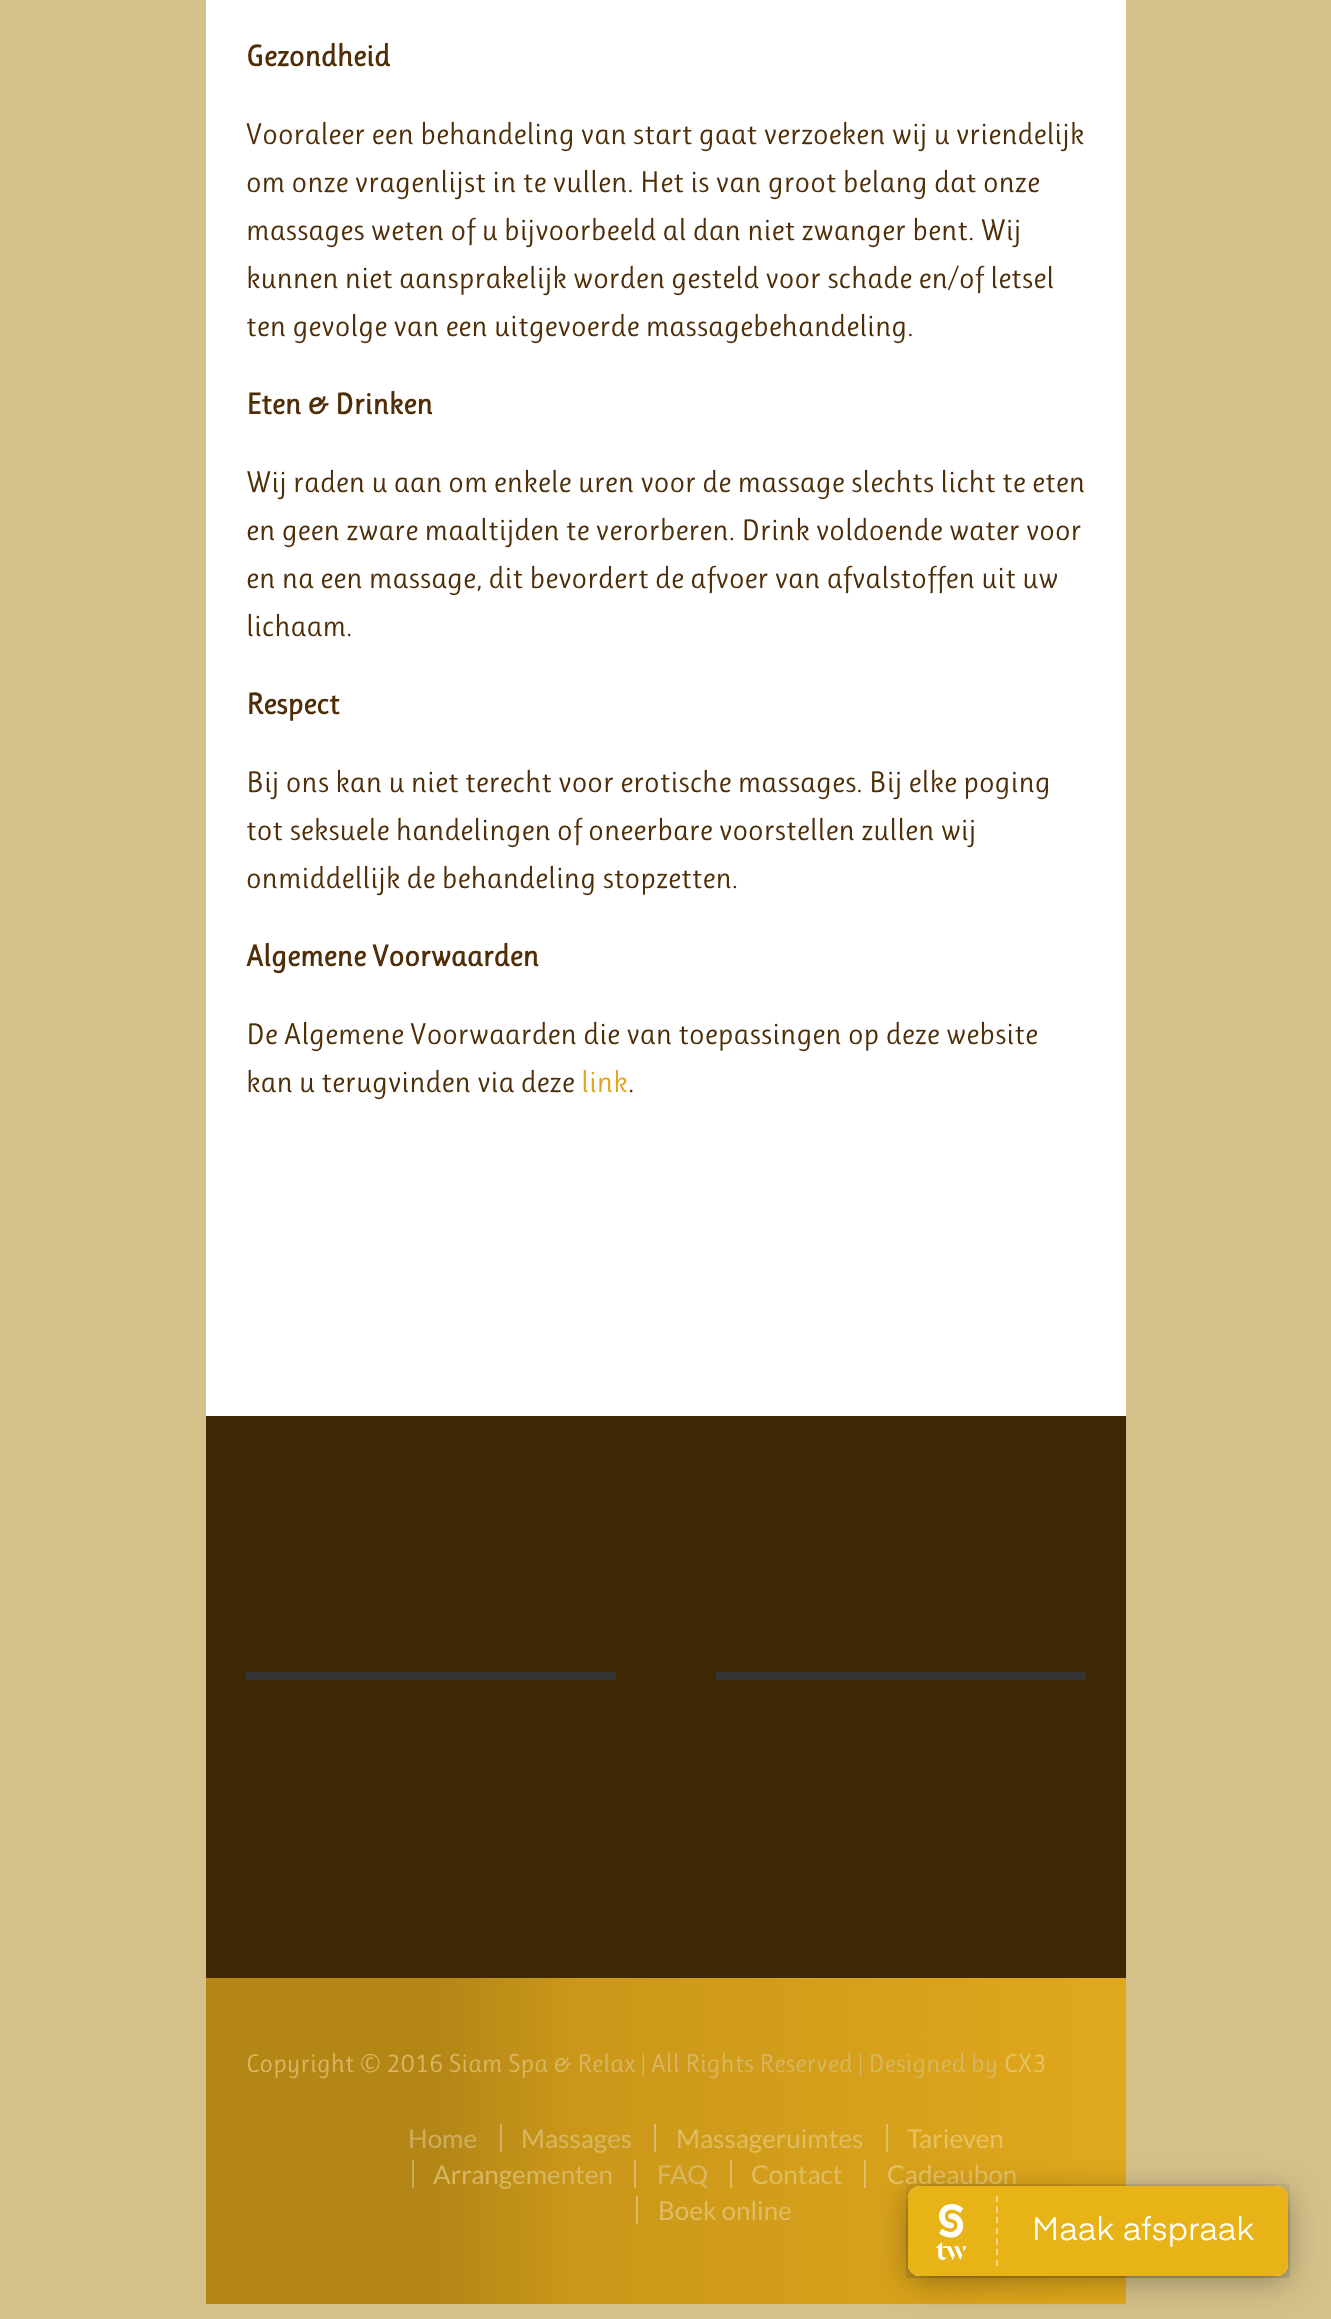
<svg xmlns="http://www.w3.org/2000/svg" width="1331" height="2319">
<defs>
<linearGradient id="g1" gradientUnits="userSpaceOnUse" x1="206" y1="2141" x2="1126" y2="2141"><stop offset="0.25" stop-color="#b38616"/><stop offset="0.4" stop-color="#ca9719"/><stop offset="1" stop-color="#e0a81c"/></linearGradient>
</defs>
<rect width="100%" height="100%" fill="#d4c089"/>
<rect x="206" width="920" height="1416" fill="#fff"/>
<text x="246" y="66" style="font-family:Ruluko;font-size:30px;font-weight:bold;fill:#4f2e07">Gezondheid</text>
<text x="246" y="144" style="font-family:Ruluko;font-size:30px;fill:#4f2e07">Vooraleer een behandeling van start gaat verzoeken wij u vriendelijk</text>
<text x="246" y="192" style="font-family:Ruluko;font-size:30px;fill:#4f2e07">om onze vragenlijst in te vullen. Het is van groot belang dat onze</text>
<text x="246" y="240" style="font-family:Ruluko;font-size:30px;fill:#4f2e07">massages weten of u bijvoorbeeld al dan niet zwanger bent. Wij</text>
<text x="246" y="288" style="font-family:Ruluko;font-size:30px;fill:#4f2e07">kunnen niet aansprakelijk worden gesteld voor schade en/of letsel</text>
<text x="246" y="336" style="font-family:Ruluko;font-size:30px;fill:#4f2e07">ten gevolge van een uitgevoerde massagebehandeling.</text>
<text x="246" y="414" style="font-family:Ruluko;font-size:30px;font-weight:bold;fill:#4f2e07">Eten &amp; Drinken</text>
<text x="246" y="492" style="font-family:Ruluko;font-size:30px;fill:#4f2e07">Wij raden u aan om enkele uren voor de massage slechts licht te eten</text>
<text x="246" y="540" style="font-family:Ruluko;font-size:30px;fill:#4f2e07">en geen zware maaltijden te verorberen. Drink voldoende water voor</text>
<text x="246" y="588" style="font-family:Ruluko;font-size:30px;fill:#4f2e07">en na een massage, dit bevordert de afvoer van afvalstoffen uit uw</text>
<text x="246" y="636" style="font-family:Ruluko;font-size:30px;fill:#4f2e07">lichaam.</text>
<text x="246" y="714" style="font-family:Ruluko;font-size:30px;font-weight:bold;fill:#4f2e07">Respect</text>
<text x="246" y="792" style="font-family:Ruluko;font-size:30px;fill:#4f2e07">Bij ons kan u niet terecht voor erotische massages. Bij elke poging</text>
<text x="246" y="840" style="font-family:Ruluko;font-size:30px;fill:#4f2e07">tot seksuele handelingen of oneerbare voorstellen zullen wij</text>
<text x="246" y="888" style="font-family:Ruluko;font-size:30px;fill:#4f2e07">onmiddellijk de behandeling stopzetten.</text>
<text x="246" y="966" style="font-family:Ruluko;font-size:30px;font-weight:bold;fill:#4f2e07">Algemene Voorwaarden</text>
<text x="246" y="1044" style="font-family:Ruluko;font-size:30px;fill:#4f2e07">De Algemene Voorwaarden die van toepassingen op deze website</text>
<text x="246" y="1092" style="font-family:Ruluko;font-size:30px;fill:#4f2e07">kan u terugvinden via deze</text>
<text x="581" y="1092" style="font-family:Ruluko;font-size:30px;fill:#e0a81c">link</text>
<text x="628" y="1092" style="font-family:Ruluko;font-size:30px;fill:#4f2e07">.</text>
<rect x="206" y="1416" width="920" height="562" fill="#3d2803"/>
<rect x="246" y="1672" width="370" height="8" fill="#333"/>
<rect x="716" y="1672" width="370" height="8" fill="#333"/>
<rect x="206" y="1978" width="920" height="326" fill="url(#g1)"/>
<text x="246" y="2072" style="font-family:Ruluko;font-size:26px;fill:#d9b762">Copyright © 2016 Siam Spa &amp; Relax | All Rights Reserved | Designed by</text>
<text x="1004" y="2072" style="font-family:Ruluko;font-size:26px;fill:#e7c264">CX3</text>
<text x="408" y="2148" style="font-family:Lato;font-size:26px;fill:#cdae61">Home</text>
<rect x="500" y="2124" width="2" height="28" fill="#d3b261"/>
<text x="521" y="2148" style="font-family:Lato;font-size:26px;fill:#d9b762">Massages</text>
<rect x="654" y="2124" width="2" height="28" fill="#ddba63"/>
<text x="676" y="2148" style="font-family:Lato;font-size:26px;fill:#e0bc63">Massageruimtes</text>
<rect x="886" y="2124" width="2" height="28" fill="#e3bf64"/>
<text x="907" y="2148" style="font-family:Lato;font-size:26px;fill:#e7c264">Tarieven</text>
<rect x="412" y="2160" width="2" height="28" fill="#cbad61"/>
<text x="433" y="2184" style="font-family:Lato;font-size:26px;fill:#d9b762">Arrangementen</text>
<rect x="634" y="2160" width="2" height="28" fill="#dcba63"/>
<text x="657" y="2184" style="font-family:Lato;font-size:26px;fill:#d9b762">FAQ</text>
<rect x="730" y="2160" width="2" height="28" fill="#dfbc63"/>
<text x="751" y="2184" style="font-family:Lato;font-size:26px;fill:#e0bc63">Contact</text>
<rect x="864" y="2160" width="2" height="28" fill="#e3be64"/>
<text x="887" y="2184" style="font-family:Lato;font-size:26px;fill:#e7c264">Cadeaubon</text>
<rect x="636" y="2196" width="2" height="28" fill="#ddba63"/>
<text x="658" y="2220" style="font-family:Lato;font-size:26px;fill:#e0bc63">Boek online</text>
<rect x="908" y="2192" width="380" height="90" rx="12" fill="#0000004d" filter="blur(15px)"/>
<image x="906" y="2184" width="384" height="94" href="media/1.png"/>
</svg>
